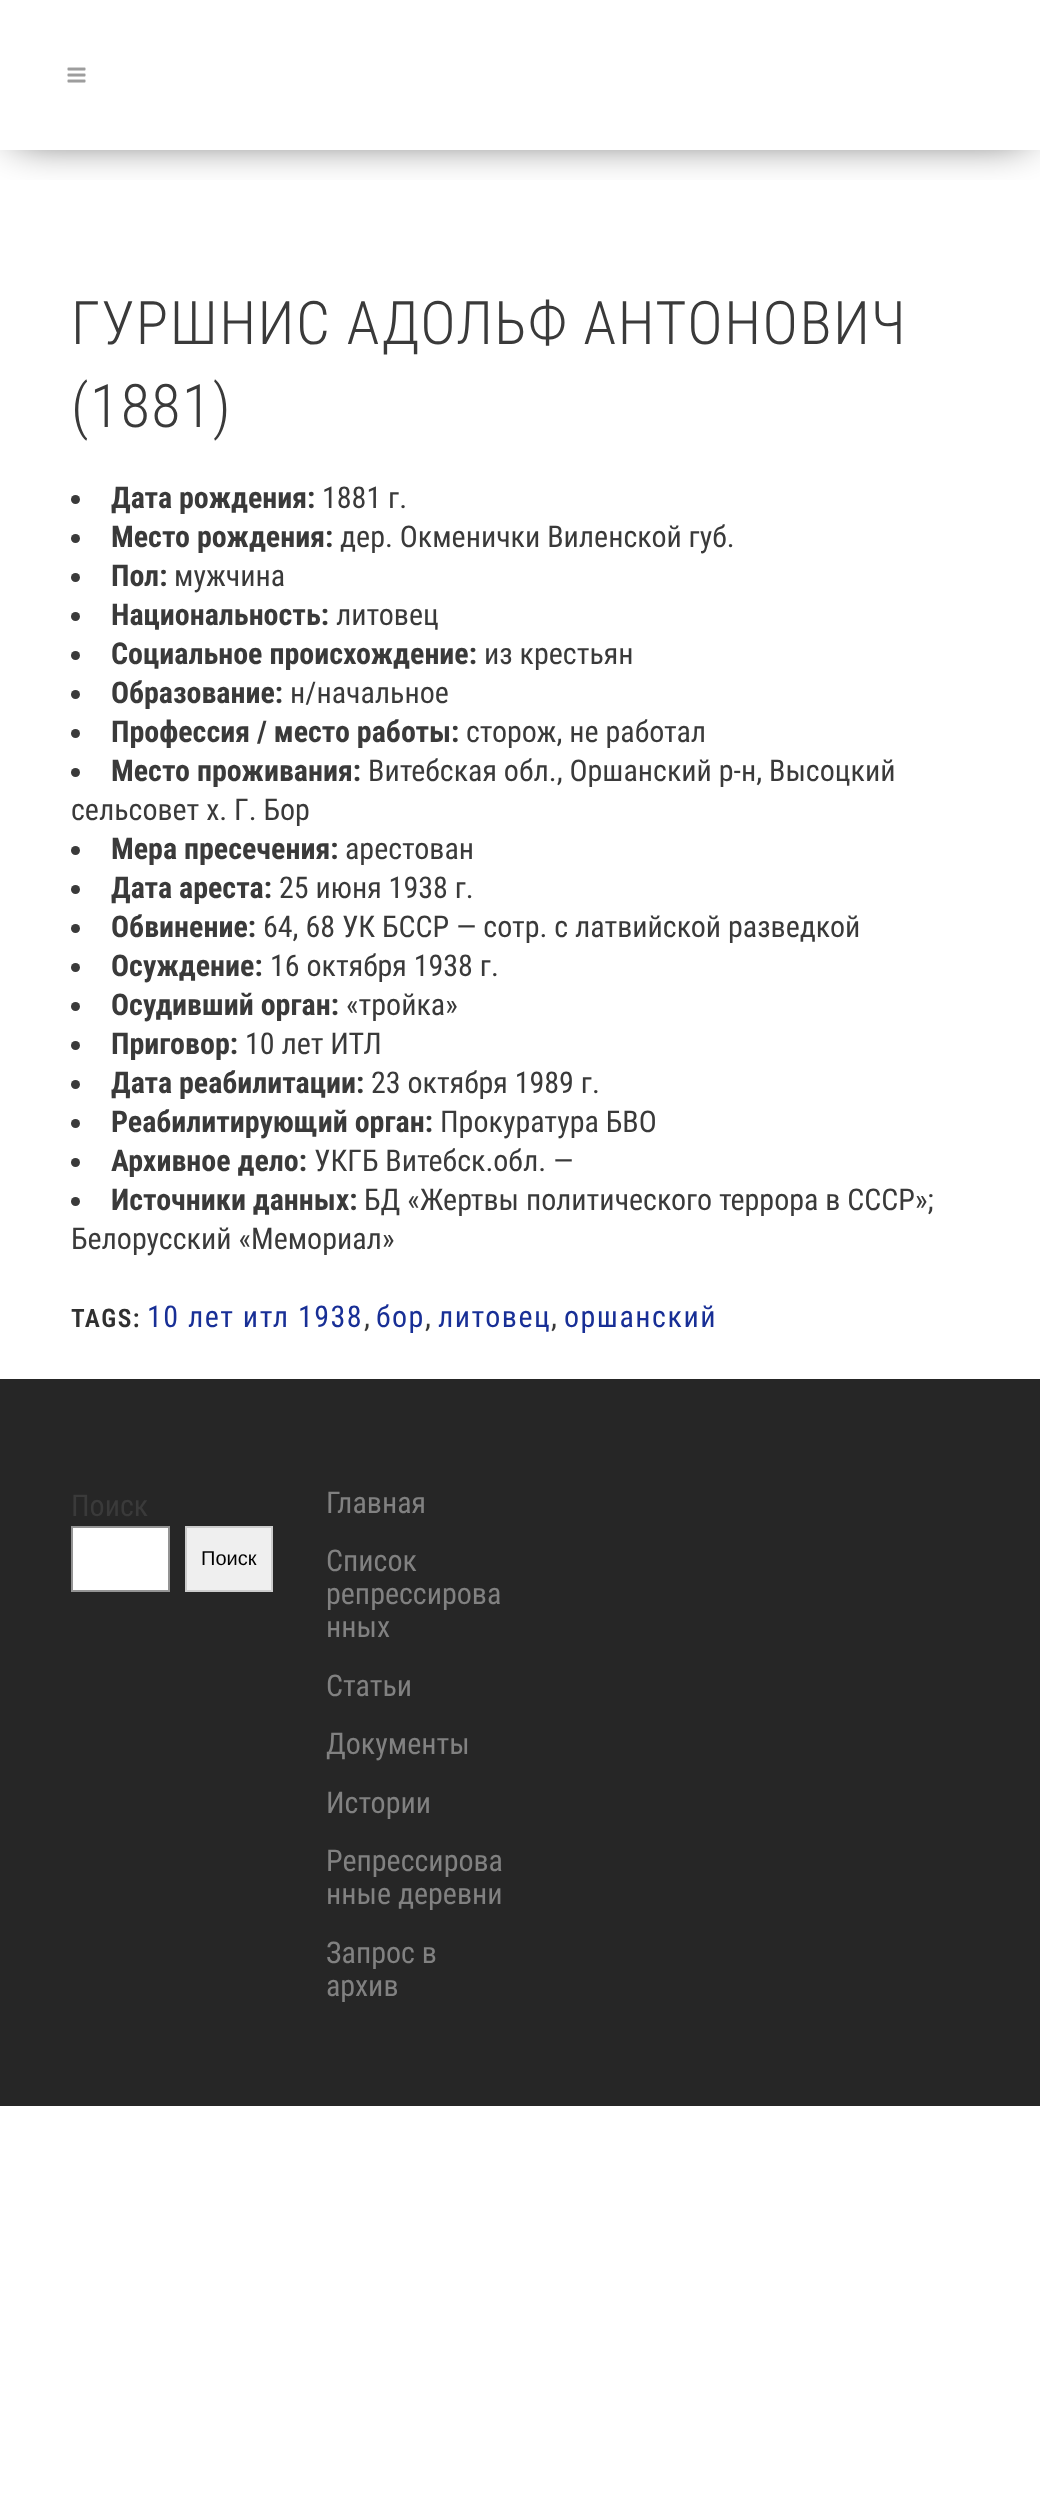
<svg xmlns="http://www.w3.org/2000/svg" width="1040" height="2501">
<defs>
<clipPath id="clip1"><rect x="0" y="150" width="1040" height="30"/></clipPath>
</defs>
<rect width="100%" height="100%" fill="#fff"/>
<g clip-path="url(#clip1)">
<rect x="15" y="18" width="1011" height="120" fill="#000000bf" filter="blur(22px)"/>
</g>
<image x="67" y="67" width="19" height="16" href="media/1.png"/>
<text x="71" y="344" style="font-family:Roboto Condensed;font-size:60px;font-weight:300;letter-spacing:1.5px;fill:#3a3a3a">ГУРШНИС АДОЛЬФ АНТОНОВИЧ</text>
<text x="71" y="427" style="font-family:Roboto Condensed;font-size:60px;font-weight:300;letter-spacing:1.5px;fill:#3a3a3a">(1881)</text>
<circle cx="75.5" cy="499.5" r="4.5" fill="#3a3a3a"/>
<text x="111" y="508" style="font-family:Roboto Condensed;font-size:30px;font-weight:bold;fill:#3a3a3a">Дата рождения:</text>
<text x="322" y="508" style="font-family:Roboto Condensed;font-size:30px;fill:#3a3a3a">1881 г.</text>
<circle cx="75.5" cy="538.5" r="4.5" fill="#3a3a3a"/>
<text x="111" y="547" style="font-family:Roboto Condensed;font-size:30px;font-weight:bold;fill:#3a3a3a">Место рождения:</text>
<text x="340" y="547" style="font-family:Roboto Condensed;font-size:30px;fill:#3a3a3a">дер. Окменички Виленской губ.</text>
<circle cx="75.5" cy="577.5" r="4.5" fill="#3a3a3a"/>
<text x="111" y="586" style="font-family:Roboto Condensed;font-size:30px;font-weight:bold;fill:#3a3a3a">Пол:</text>
<text x="174" y="586" style="font-family:Roboto Condensed;font-size:30px;fill:#3a3a3a">мужчина</text>
<circle cx="75.5" cy="616.5" r="4.5" fill="#3a3a3a"/>
<text x="111" y="625" style="font-family:Roboto Condensed;font-size:30px;font-weight:bold;fill:#3a3a3a">Национальность:</text>
<text x="336" y="625" style="font-family:Roboto Condensed;font-size:30px;fill:#3a3a3a">литовец</text>
<circle cx="75.5" cy="655.5" r="4.5" fill="#3a3a3a"/>
<text x="111" y="664" style="font-family:Roboto Condensed;font-size:30px;font-weight:bold;fill:#3a3a3a">Социальное происхождение:</text>
<text x="484" y="664" style="font-family:Roboto Condensed;font-size:30px;fill:#3a3a3a">из крестьян</text>
<circle cx="75.5" cy="694.5" r="4.5" fill="#3a3a3a"/>
<text x="111" y="703" style="font-family:Roboto Condensed;font-size:30px;font-weight:bold;fill:#3a3a3a">Образование:</text>
<text x="290" y="703" style="font-family:Roboto Condensed;font-size:30px;fill:#3a3a3a">н/начальное</text>
<circle cx="75.5" cy="733.5" r="4.5" fill="#3a3a3a"/>
<text x="111" y="742" style="font-family:Roboto Condensed;font-size:30px;font-weight:bold;fill:#3a3a3a">Профессия / место работы:</text>
<text x="466" y="742" style="font-family:Roboto Condensed;font-size:30px;fill:#3a3a3a">сторож, не работал</text>
<circle cx="75.5" cy="772.5" r="4.5" fill="#3a3a3a"/>
<text x="111" y="781" style="font-family:Roboto Condensed;font-size:30px;font-weight:bold;fill:#3a3a3a">Место проживания:</text>
<text x="368" y="781" style="font-family:Roboto Condensed;font-size:30px;fill:#3a3a3a">Витебская обл., Оршанский р-н, Высоцкий</text>
<text x="71" y="820" style="font-family:Roboto Condensed;font-size:30px;fill:#3a3a3a">сельсовет х. Г. Бор</text>
<circle cx="75.5" cy="850.5" r="4.5" fill="#3a3a3a"/>
<text x="111" y="859" style="font-family:Roboto Condensed;font-size:30px;font-weight:bold;fill:#3a3a3a">Мера пресечения:</text>
<text x="345" y="859" style="font-family:Roboto Condensed;font-size:30px;fill:#3a3a3a">арестован</text>
<circle cx="75.5" cy="889.5" r="4.5" fill="#3a3a3a"/>
<text x="111" y="898" style="font-family:Roboto Condensed;font-size:30px;font-weight:bold;fill:#3a3a3a">Дата ареста:</text>
<text x="279" y="898" style="font-family:Roboto Condensed;font-size:30px;fill:#3a3a3a">25 июня 1938 г.</text>
<circle cx="75.5" cy="928.5" r="4.5" fill="#3a3a3a"/>
<text x="111" y="937" style="font-family:Roboto Condensed;font-size:30px;font-weight:bold;fill:#3a3a3a">Обвинение:</text>
<text x="263" y="937" style="font-family:Roboto Condensed;font-size:30px;fill:#3a3a3a">64, 68 УК БССР — сотр. с латвийской разведкой</text>
<circle cx="75.5" cy="967.5" r="4.5" fill="#3a3a3a"/>
<text x="111" y="976" style="font-family:Roboto Condensed;font-size:30px;font-weight:bold;fill:#3a3a3a">Осуждение:</text>
<text x="270" y="976" style="font-family:Roboto Condensed;font-size:30px;fill:#3a3a3a">16 октября 1938 г.</text>
<circle cx="75.5" cy="1006.5" r="4.5" fill="#3a3a3a"/>
<text x="111" y="1015" style="font-family:Roboto Condensed;font-size:30px;font-weight:bold;fill:#3a3a3a">Осудивший орган:</text>
<text x="346" y="1015" style="font-family:Roboto Condensed;font-size:30px;fill:#3a3a3a">«тройка»</text>
<circle cx="75.5" cy="1045.5" r="4.5" fill="#3a3a3a"/>
<text x="111" y="1054" style="font-family:Roboto Condensed;font-size:30px;font-weight:bold;fill:#3a3a3a">Приговор:</text>
<text x="245" y="1054" style="font-family:Roboto Condensed;font-size:30px;fill:#3a3a3a">10 лет ИТЛ</text>
<circle cx="75.5" cy="1084.5" r="4.5" fill="#3a3a3a"/>
<text x="111" y="1093" style="font-family:Roboto Condensed;font-size:30px;font-weight:bold;fill:#3a3a3a">Дата реабилитации:</text>
<text x="371" y="1093" style="font-family:Roboto Condensed;font-size:30px;fill:#3a3a3a">23 октября 1989 г.</text>
<circle cx="75.5" cy="1123.5" r="4.5" fill="#3a3a3a"/>
<text x="111" y="1132" style="font-family:Roboto Condensed;font-size:30px;font-weight:bold;fill:#3a3a3a">Реабилитирующий орган:</text>
<text x="440" y="1132" style="font-family:Roboto Condensed;font-size:30px;fill:#3a3a3a">Прокуратура БВО</text>
<circle cx="75.5" cy="1162.5" r="4.5" fill="#3a3a3a"/>
<text x="111" y="1171" style="font-family:Roboto Condensed;font-size:30px;font-weight:bold;fill:#3a3a3a">Архивное дело:</text>
<text x="314" y="1171" style="font-family:Roboto Condensed;font-size:30px;fill:#3a3a3a">УКГБ Витебск.обл. —</text>
<circle cx="75.5" cy="1201.5" r="4.5" fill="#3a3a3a"/>
<text x="111" y="1210" style="font-family:Roboto Condensed;font-size:30px;font-weight:bold;fill:#3a3a3a">Источники данных:</text>
<text x="364" y="1210" style="font-family:Roboto Condensed;font-size:30px;fill:#3a3a3a">БД «Жертвы политического террора в СССР»;</text>
<text x="71" y="1249" style="font-family:Roboto Condensed;font-size:30px;fill:#3a3a3a">Белорусский «Мемориал»</text>
<text x="71" y="1327" style="font-family:Roboto Condensed;font-size:25.5px;font-weight:600;letter-spacing:1.5px;fill:#303030">TAGS:</text>
<text x="147" y="1327" style="font-family:Roboto Condensed;font-size:30px;letter-spacing:1.5px;fill:#182f96">10 лет итл 1938</text>
<text x="364" y="1327" style="font-family:Roboto Condensed;font-size:30px;fill:#3a3a3a">,</text>
<text x="376" y="1327" style="font-family:Roboto Condensed;font-size:30px;letter-spacing:1.5px;fill:#182f96">бор</text>
<text x="425" y="1327" style="font-family:Roboto Condensed;font-size:30px;fill:#3a3a3a">,</text>
<text x="438" y="1327" style="font-family:Roboto Condensed;font-size:30px;letter-spacing:1.5px;fill:#182f96">литовец</text>
<text x="551" y="1327" style="font-family:Roboto Condensed;font-size:30px;fill:#3a3a3a">,</text>
<text x="564" y="1327" style="font-family:Roboto Condensed;font-size:30px;letter-spacing:1.5px;fill:#182f96">оршанский</text>
<rect y="1379" width="1040" height="727" fill="#262626"/>
<text x="71" y="1516" style="font-family:Roboto Condensed;font-size:30px;fill:#3a3a3a">Поиск</text>
<rect x="72" y="1527" width="97" height="64" fill="#fff" stroke="#949494" stroke-width="2"/>
<rect x="186" y="1527" width="86" height="64" fill="#efefef" stroke="#ccc" stroke-width="2"/>
<text x="201" y="1565" style="font-family:Liberation Sans;font-size:20px;fill:#000">Поиск</text>
<text x="326" y="1513" style="font-family:Roboto Condensed;font-size:30px;fill:#818181">Главная</text>
<text x="326" y="1571" style="font-family:Roboto Condensed;font-size:30px;fill:#818181">Список</text>
<text x="326" y="1604" style="font-family:Roboto Condensed;font-size:30px;fill:#818181">репрессирова</text>
<text x="326" y="1637" style="font-family:Roboto Condensed;font-size:30px;fill:#818181">нных</text>
<text x="326" y="1696" style="font-family:Roboto Condensed;font-size:30px;fill:#818181">Статьи</text>
<text x="326" y="1754" style="font-family:Roboto Condensed;font-size:30px;fill:#818181">Документы</text>
<text x="326" y="1813" style="font-family:Roboto Condensed;font-size:30px;fill:#818181">Истории</text>
<text x="326" y="1871" style="font-family:Roboto Condensed;font-size:30px;fill:#818181">Репрессирова</text>
<text x="326" y="1904" style="font-family:Roboto Condensed;font-size:30px;fill:#818181">нные деревни</text>
<text x="326" y="1963" style="font-family:Roboto Condensed;font-size:30px;fill:#818181">Запрос в</text>
<text x="326" y="1996" style="font-family:Roboto Condensed;font-size:30px;fill:#818181">архив</text>
</svg>
